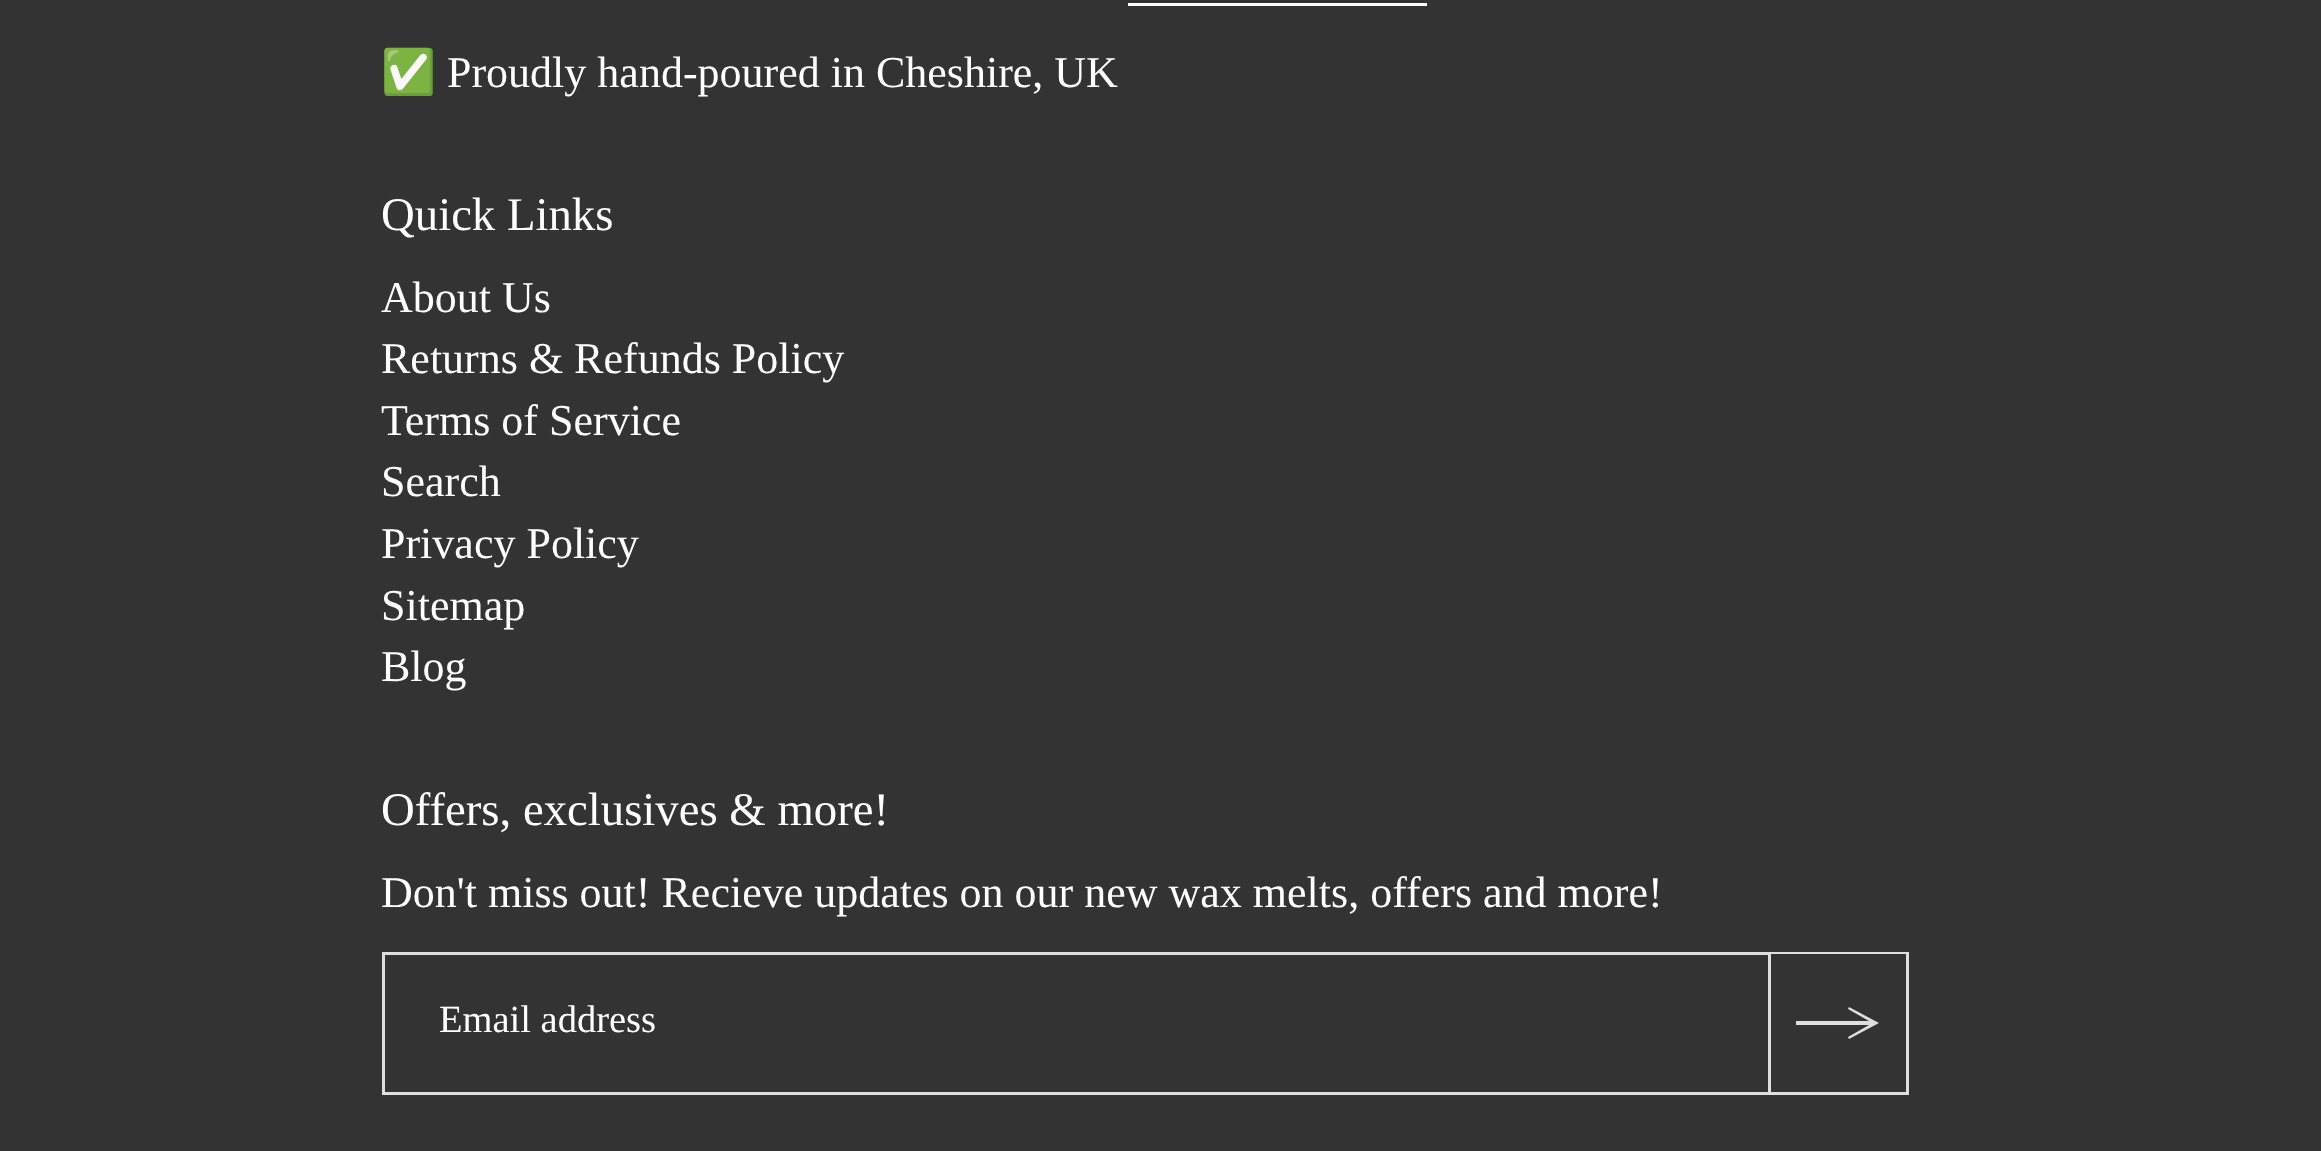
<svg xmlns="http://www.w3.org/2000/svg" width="2321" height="1151">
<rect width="100%" height="100%" fill="#333"/>
<rect x="1128" y="3" width="299" height="3" fill="#fff"/>
<text x="381" y="87" style="font-family:Noto Color Emoji;font-size:44px;fill:#fff">✅</text>
<text x="447" y="87" style="font-family:Liberation Serif;font-size:44px;fill:#fff">Proudly hand-poured in Cheshire, UK</text>
<text x="381" y="230" style="font-family:Liberation Serif;font-size:46.75px;fill:#fff">Quick Links</text>
<text x="381" y="312" style="font-family:Liberation Serif;font-size:44px;fill:#fff">About Us</text>
<text x="381" y="373" style="font-family:Liberation Serif;font-size:44px;fill:#fff">Returns &amp; Refunds Policy</text>
<text x="381" y="435" style="font-family:Liberation Serif;font-size:44px;fill:#fff">Terms of Service</text>
<text x="381" y="496" style="font-family:Liberation Serif;font-size:44px;fill:#fff">Search</text>
<text x="381" y="558" style="font-family:Liberation Serif;font-size:44px;fill:#fff">Privacy Policy</text>
<text x="381" y="620" style="font-family:Liberation Serif;font-size:44px;fill:#fff">Sitemap</text>
<text x="381" y="681" style="font-family:Liberation Serif;font-size:44px;fill:#fff">Blog</text>
<text x="381" y="825" style="font-family:Liberation Serif;font-size:46.75px;fill:#fff">Offers, exclusives &amp; more!</text>
<text x="381" y="907" style="font-family:Liberation Serif;font-size:44px;fill:#fff">Don't miss out! Recieve updates on our new wax melts, offers and more!</text>
<rect x="383.5" y="953.5" width="1524" height="140" fill="none" stroke="#dfdfdf" stroke-width="3"/>
<text x="439" y="1032" style="font-family:Liberation Serif;font-size:38.5px;fill:#fff">Email address</text>
<rect x="1771" y="954" width="135" height="1" fill="#333"/>
<rect x="1768" y="954" width="3" height="138" fill="#dfdfdf"/>
<path d="M1849 1007l30 16l-30 16l-1-2l21-12h-73v-4h73l-21-12z" fill="#dfdfdf"/>
</svg>
